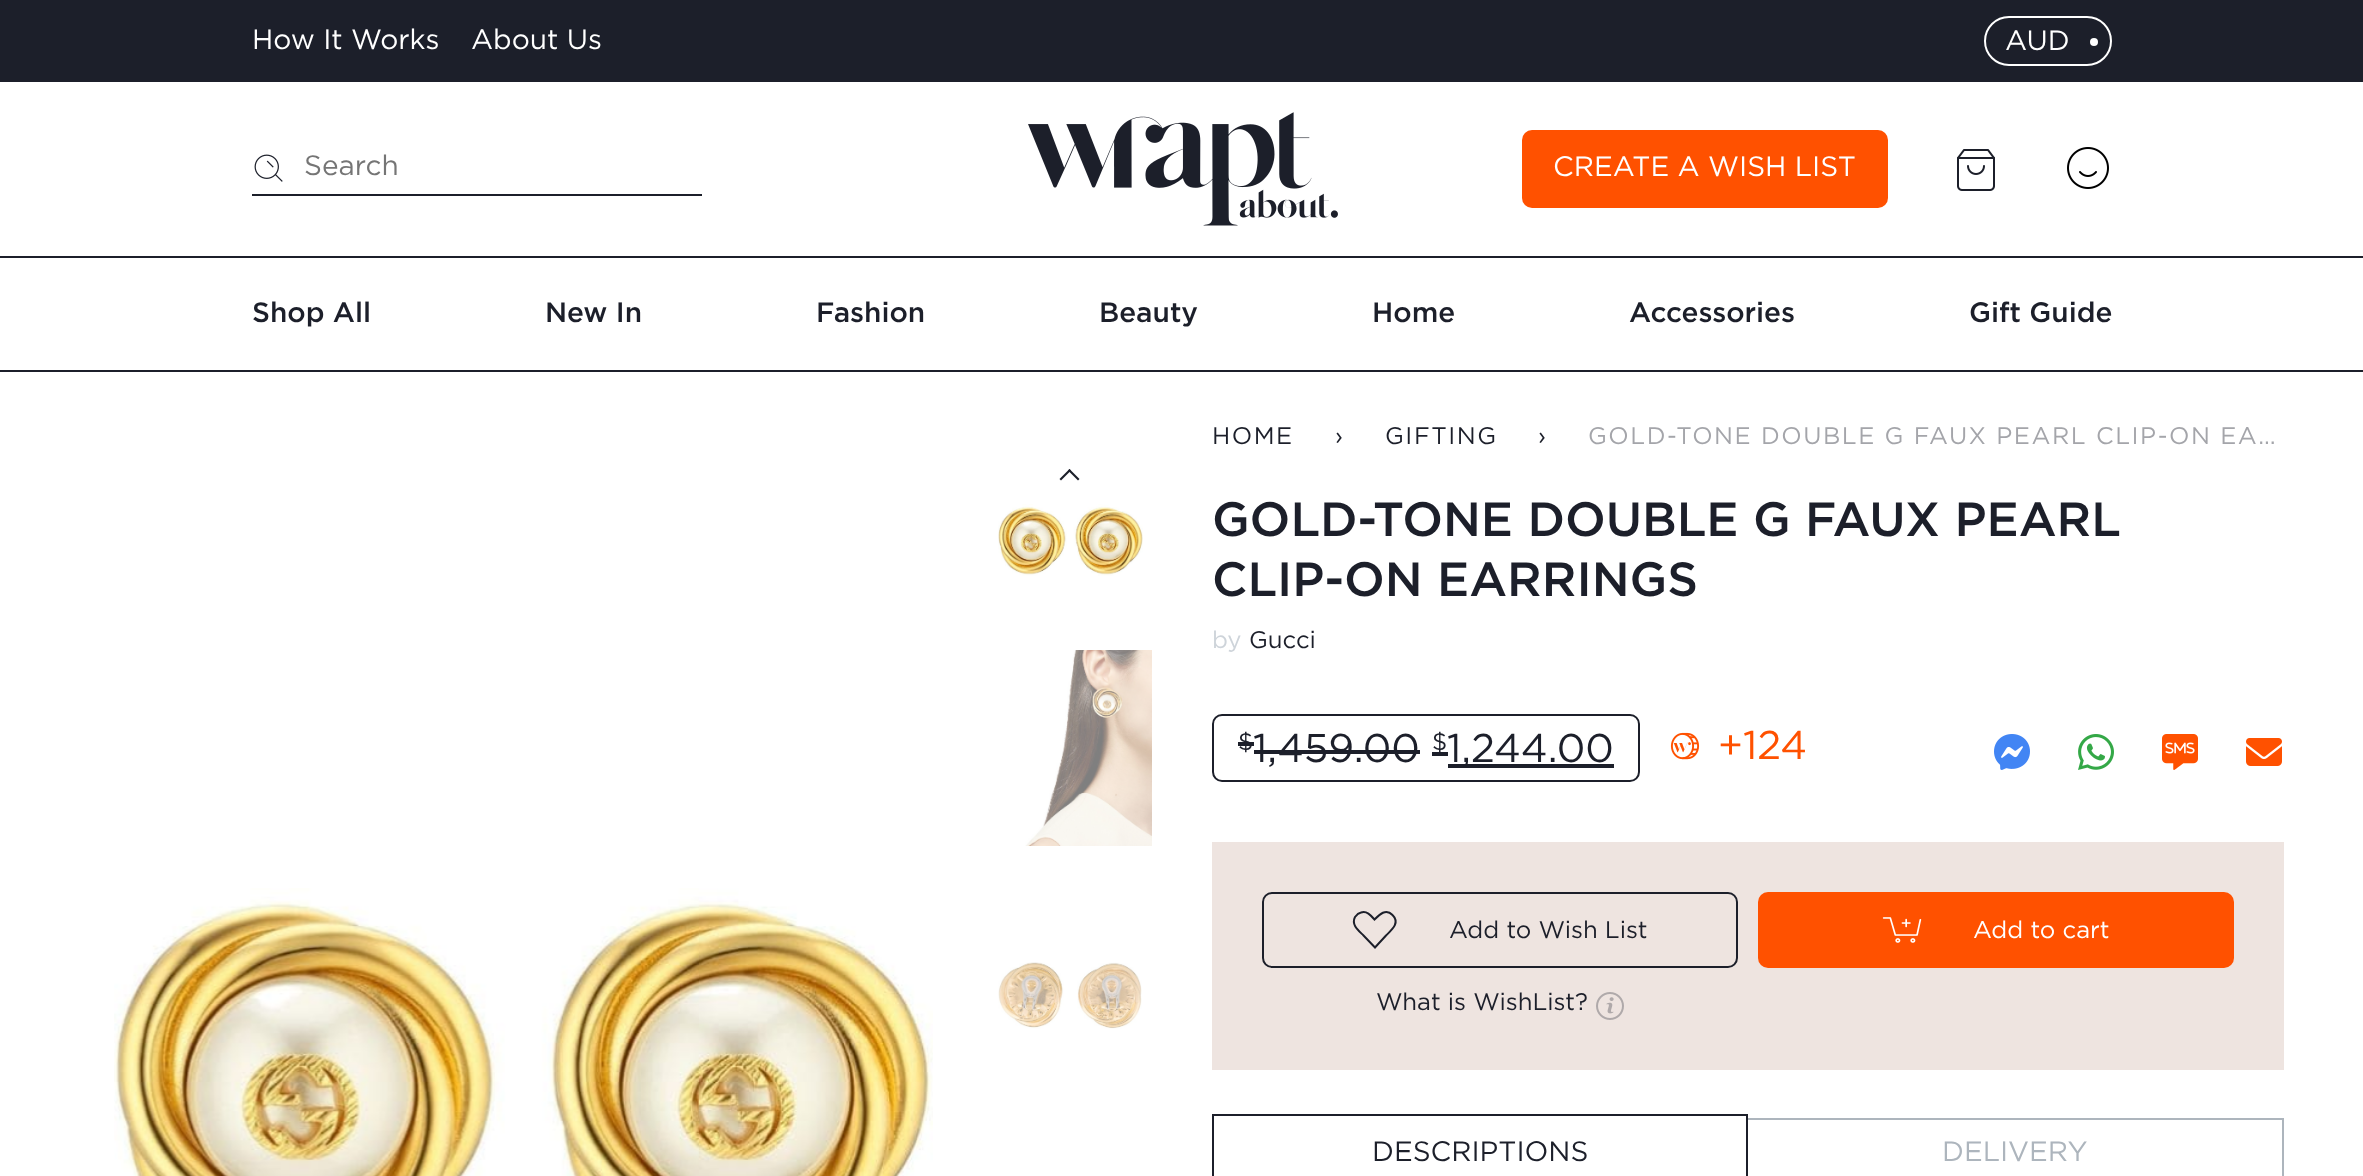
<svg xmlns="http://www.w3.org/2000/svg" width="2363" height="1176">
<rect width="100%" height="100%" fill="#fff"/>
<rect y="370" width="2363" height="2" fill="#1c1f2a"/>
<rect width="2363" height="82" fill="#1c1f2a"/>
<text x="252" y="49" style="font-family:Gotham;font-size:28px;fill:#fff">How It Works</text>
<text x="471" y="49" style="font-family:Gotham;font-size:28px;fill:#fff">About Us</text>
<rect x="1985" y="17" width="126" height="48" rx="24" fill="none" stroke="#fff" stroke-width="2"/>
<text x="2005" y="50" style="font-family:Gotham;font-size:28px;fill:#fff">AUD</text>
<circle cx="2094" cy="42" r="4" fill="#fff"/>
<rect x="252" y="194" width="450" height="2" fill="#1c1f2a"/>
<image x="254" y="154" width="29" height="28" href="media/1.png"/>
<text x="304" y="175" style="font-family:Gotham;font-size:28px;fill:#757575">Search</text>
<image x="1028" y="112" width="310" height="114" href="media/2.png"/>
<rect x="1522" y="130" width="366" height="78" rx="10" fill="#ff5100"/>
<text x="1553" y="176" style="font-family:Gotham;font-size:28px;fill:#fff">CREATE A WISH LIST</text>
<image x="1957" y="149" width="38" height="42" href="media/3.png"/>
<image x="2067" y="147" width="42" height="42" href="media/4.png"/>
<rect y="256" width="2363" height="2" fill="#1c1f2a"/>
<text x="252" y="322" style="font-family:Gotham;font-size:28px;font-weight:500;fill:#1c1f2a">Shop All</text>
<text x="545" y="322" style="font-family:Gotham;font-size:28px;font-weight:500;fill:#1c1f2a">New In</text>
<text x="816" y="322" style="font-family:Gotham;font-size:28px;font-weight:500;fill:#1c1f2a">Fashion</text>
<text x="1099" y="322" style="font-family:Gotham;font-size:28px;font-weight:500;fill:#1c1f2a">Beauty</text>
<text x="1372" y="322" style="font-family:Gotham;font-size:28px;font-weight:500;fill:#1c1f2a">Home</text>
<text x="1629" y="322" style="font-family:Gotham;font-size:28px;font-weight:500;fill:#1c1f2a">Accessories</text>
<text x="1969" y="322" style="font-family:Gotham;font-size:28px;font-weight:500;fill:#1c1f2a">Gift Guide</text>
<image x="114" y="888" width="819" height="288" href="media/5.png"/>
<path d="M1059.5 479l10-10l1.5 1.5l-10 10z" fill="#1c1f2a"/>
<path d="M1068 470.5l1.5-1.5l10 10l-1.5 1.5z" fill="#1c1f2a"/>
<image x="998" y="504" width="145" height="72" href="media/6.png"/>
<image x="1025" y="650" width="127" height="196" href="media/7.png"/>
<image x="998" y="962" width="144" height="67" href="media/8.png"/>
<text x="1212" y="444" style="font-family:Gotham;font-size:24px;letter-spacing:1.55px;fill:#1c1f2a">HOME</text>
<text x="1335" y="444" style="font-family:Gotham;font-size:24px;letter-spacing:1.55px;fill:#1c1f2a">›</text>
<text x="1385" y="444" style="font-family:Gotham;font-size:24px;letter-spacing:1.55px;fill:#1c1f2a">GIFTING</text>
<text x="1538" y="444" style="font-family:Gotham;font-size:24px;letter-spacing:1.55px;fill:#1c1f2a">›</text>
<text x="1588" y="444" style="font-family:Gotham;font-size:24px;letter-spacing:1.55px;fill:#a4a5aa">GOLD-TONE DOUBLE G FAUX PEARL CLIP-ON EA…</text>
<text x="1212" y="536" style="font-family:Gotham;font-size:48px;font-weight:500;fill:#1c1f2a">GOLD-TONE DOUBLE G FAUX PEARL</text>
<text x="1212" y="596" style="font-family:Gotham;font-size:48px;font-weight:500;fill:#1c1f2a">CLIP-ON EARRINGS</text>
<text x="1212" y="648" style="font-family:Gotham;font-size:24px;fill:#ced4da">by</text>
<text x="1249" y="648" style="font-family:Gotham;font-size:24px;fill:#1c1f2a">Gucci</text>
<rect x="1213" y="715" width="426" height="66" rx="9" fill="none" stroke="#1c1f2a" stroke-width="2"/>
<text x="1238" y="750" style="font-family:Gotham;font-size:24px;fill:#1c1f2a">$</text>
<rect x="1238" y="742" width="16" height="4" fill="#1c1f2a"/>
<text x="1253" y="762" style="font-family:Gotham;font-size:40px;fill:#1c1f2a">1,459.00</text>
<rect x="1254" y="750" width="166" height="4" fill="#1c1f2a"/>
<rect x="1432" y="752" width="16" height="4" fill="#1c1f2a"/>
<text x="1432" y="750" style="font-family:Gotham;font-size:24px;fill:#1c1f2a">$</text>
<rect x="1448" y="764" width="166" height="4" fill="#1c1f2a"/>
<text x="1447" y="762" style="font-family:Gotham;font-size:40px;fill:#1c1f2a">1,244.00</text>
<image x="1670" y="732" width="30" height="28" href="media/9.png"/>
<text x="1718" y="759" style="font-family:Gotham;font-size:40px;fill:#ff5100">+124</text>
<image x="1994" y="734" width="36" height="36" href="media/10.png"/>
<image x="2078" y="734" width="36" height="36" href="media/11.png"/>
<image x="2162" y="734" width="36" height="36" href="media/12.png"/>
<image x="2246" y="738" width="36" height="28" href="media/13.png"/>
<rect x="1212" y="842" width="1072" height="228" fill="#eee4e0"/>
<rect x="1263" y="893" width="474" height="74" rx="9" fill="none" stroke="#1c1f2a" stroke-width="2"/>
<path d="M1392.5 915c-6.5-7-13-.5-18 4.5c-3.5-4-7.5-9-13.5-7c-2.5 .5-4.5 2.5-6 4.5c-4 8 3.5 13.5 8.5 18.5l11.5 12l11-12c5.5-5.5 14.5-12.5 6.5-20.5z" fill="none" stroke="#1c1f2a" stroke-width="2"/>
<text x="1449" y="938" style="font-family:Gotham;font-size:24px;fill:#1c1f2a">Add to Wish List</text>
<text x="1376" y="1010" style="font-family:Gotham;font-size:24px;fill:#1c1f2a">What is WishList?</text>
<image x="1596" y="992" width="28" height="28" href="media/14.png"/>
<rect x="1758" y="892" width="476" height="76" rx="10" fill="#ff5100"/>
<image x="1882" y="917" width="40" height="26" href="media/15.png"/>
<text x="1973" y="938" style="font-family:Gotham;font-size:24px;fill:#fff">Add to cart</text>
<rect x="1212" y="1114" width="536" height="2" fill="#1c1f2a"/>
<rect x="1746" y="1118" width="538" height="2" fill="#adb5bd"/>
<rect x="1746" y="1114" width="2" height="62" fill="#1c1f2a"/>
<rect x="1212" y="1114" width="2" height="62" fill="#1c1f2a"/>
<text x="1372" y="1161" style="font-family:Gotham;font-size:28px;fill:#1c1f2a">DESCRIPTIONS</text>
<path d="M2284 1118v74l-2-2v-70z" fill="#adb5bd"/>
<text x="1942" y="1161" style="font-family:Gotham;font-size:28px;fill:#adb5bd">DELIVERY</text>
</svg>
